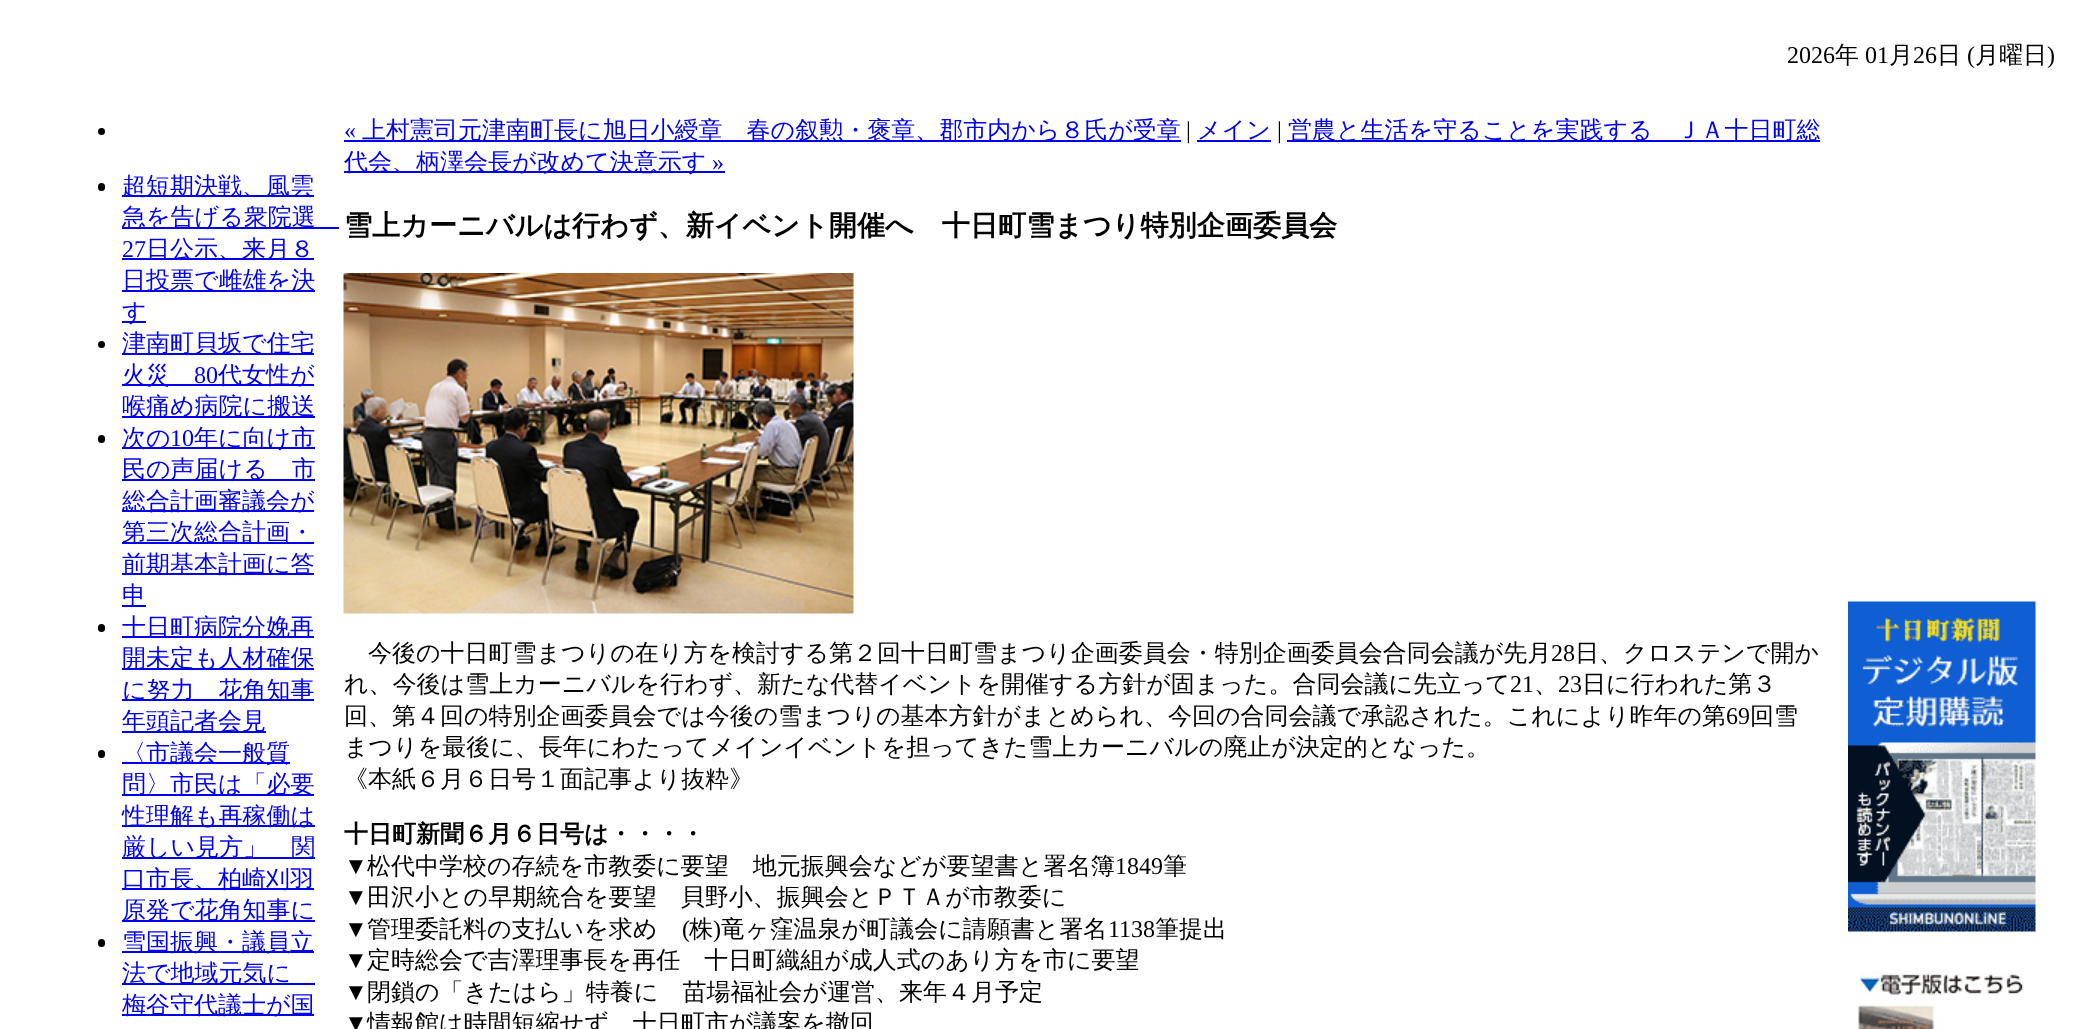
<svg xmlns="http://www.w3.org/2000/svg" width="2097" height="1029">
<rect width="100%" height="100%" fill="#fff"/>
<text x="1787" y="63" style="font-family:Liberation Serif;font-size:24px;fill:#000">2026</text>
<text x="1835" y="63" style="font-family:WenQuanYi Zen Hei;font-size:24px;font-weight:500;fill:#000">年</text>
<text x="1865" y="63" style="font-family:Liberation Serif;font-size:24px;fill:#000">01</text>
<text x="1889" y="63" style="font-family:WenQuanYi Zen Hei;font-size:24px;font-weight:500;fill:#000">月</text>
<text x="1913" y="63" style="font-family:Liberation Serif;font-size:24px;fill:#000">26</text>
<text x="1937" y="63" style="font-family:WenQuanYi Zen Hei;font-size:24px;font-weight:500;fill:#000">日</text>
<text x="1967" y="63" style="font-family:Liberation Serif;font-size:24px;fill:#000">(</text>
<text x="1975" y="63" style="font-family:WenQuanYi Zen Hei;font-size:24px;font-weight:500;fill:#000">月曜日</text>
<text x="2047" y="63" style="font-family:Liberation Serif;font-size:24px;fill:#000">)</text>
<circle cx="101.5" cy="131.5" r="3.5" fill="#000"/>
<rect x="98" y="183" width="7" height="8" rx="3.5" fill="#000"/>
<rect x="122" y="195" width="192" height="2" fill="#00e"/>
<text x="122" y="194" style="font-family:WenQuanYi Zen Hei;font-size:24px;font-weight:500;fill:#00e">超短期決戦、風雲</text>
<rect x="122" y="227" width="217" height="2" fill="#00e"/>
<text x="122" y="225" style="font-family:WenQuanYi Zen Hei;font-size:24px;font-weight:500;fill:#00e">急を告げる衆院選</text>
<text x="122" y="257" style="font-family:Liberation Serif;font-size:24px;fill:#00e">27</text>
<rect x="122" y="258" width="192" height="2" fill="#00e"/>
<text x="146" y="257" style="font-family:WenQuanYi Zen Hei;font-size:24px;font-weight:500;fill:#00e">日公示、来月８</text>
<rect x="122" y="290" width="193" height="2" fill="#00e"/>
<text x="122" y="288" style="font-family:WenQuanYi Zen Hei;font-size:24px;font-weight:500;fill:#00e">日投票で雌雄を決</text>
<rect x="122" y="321" width="24" height="2" fill="#00e"/>
<text x="122" y="320" style="font-family:WenQuanYi Zen Hei;font-size:24px;font-weight:500;fill:#00e">す</text>
<circle cx="101.5" cy="344.5" r="3.5" fill="#000"/>
<rect x="122" y="353" width="192" height="2" fill="#00e"/>
<text x="122" y="351" style="font-family:WenQuanYi Zen Hei;font-size:24px;font-weight:500;fill:#00e">津南町貝坂で住宅</text>
<rect x="122" y="384" width="192" height="2" fill="#00e"/>
<text x="122" y="383" style="font-family:WenQuanYi Zen Hei;font-size:24px;font-weight:500;fill:#00e">火災</text>
<text x="194" y="383" style="font-family:Liberation Serif;font-size:24px;fill:#00e">80</text>
<text x="218" y="383" style="font-family:WenQuanYi Zen Hei;font-size:24px;font-weight:500;fill:#00e">代女性が</text>
<rect x="122" y="416" width="193" height="2" fill="#00e"/>
<text x="122" y="414" style="font-family:WenQuanYi Zen Hei;font-size:24px;font-weight:500;fill:#00e">喉痛め病院に搬送</text>
<rect x="98" y="435" width="7" height="8" rx="3.5" fill="#000"/>
<rect x="122" y="447" width="193" height="2" fill="#00e"/>
<text x="122" y="446" style="font-family:WenQuanYi Zen Hei;font-size:24px;font-weight:500;fill:#00e">次の</text>
<text x="170" y="446" style="font-family:Liberation Serif;font-size:24px;fill:#00e">10</text>
<text x="194" y="446" style="font-family:WenQuanYi Zen Hei;font-size:24px;font-weight:500;fill:#00e">年に向け市</text>
<rect x="122" y="479" width="193" height="2" fill="#00e"/>
<text x="122" y="477" style="font-family:WenQuanYi Zen Hei;font-size:24px;font-weight:500;fill:#00e">民の声届ける　市</text>
<rect x="122" y="510" width="192" height="2" fill="#00e"/>
<text x="122" y="509" style="font-family:WenQuanYi Zen Hei;font-size:24px;font-weight:500;fill:#00e">総合計画審議会が</text>
<rect x="122" y="542" width="192" height="2" fill="#00e"/>
<text x="122" y="540" style="font-family:WenQuanYi Zen Hei;font-size:24px;font-weight:500;fill:#00e">第三次総合計画・</text>
<rect x="122" y="573" width="192" height="2" fill="#00e"/>
<text x="122" y="572" style="font-family:WenQuanYi Zen Hei;font-size:24px;font-weight:500;fill:#00e">前期基本計画に答</text>
<rect x="122" y="605" width="24" height="2" fill="#00e"/>
<text x="122" y="603" style="font-family:WenQuanYi Zen Hei;font-size:24px;font-weight:500;fill:#00e">申</text>
<rect x="98" y="624" width="7" height="8" rx="3.5" fill="#000"/>
<rect x="122" y="636" width="192" height="2" fill="#00e"/>
<text x="122" y="635" style="font-family:WenQuanYi Zen Hei;font-size:24px;font-weight:500;fill:#00e">十日町病院分娩再</text>
<rect x="122" y="668" width="192" height="2" fill="#00e"/>
<text x="122" y="666" style="font-family:WenQuanYi Zen Hei;font-size:24px;font-weight:500;fill:#00e">開未定も人材確保</text>
<rect x="122" y="699" width="192" height="2" fill="#00e"/>
<text x="122" y="698" style="font-family:WenQuanYi Zen Hei;font-size:24px;font-weight:500;fill:#00e">に努力　花角知事</text>
<rect x="122" y="731" width="144" height="2" fill="#00e"/>
<text x="122" y="729" style="font-family:WenQuanYi Zen Hei;font-size:24px;font-weight:500;fill:#00e">年頭記者会見</text>
<rect x="98" y="750" width="7" height="8" rx="3.5" fill="#000"/>
<rect x="122" y="762" width="168" height="2" fill="#00e"/>
<text x="122" y="761" style="font-family:WenQuanYi Zen Hei;font-size:24px;font-weight:500;fill:#00e">〈市議会一般質</text>
<rect x="122" y="794" width="192" height="2" fill="#00e"/>
<text x="122" y="792" style="font-family:WenQuanYi Zen Hei;font-size:24px;font-weight:500;fill:#00e">問〉市民は「必要</text>
<rect x="122" y="825" width="193" height="2" fill="#00e"/>
<text x="122" y="824" style="font-family:WenQuanYi Zen Hei;font-size:24px;font-weight:500;fill:#00e">性理解も再稼働は</text>
<rect x="122" y="857" width="193" height="2" fill="#00e"/>
<text x="122" y="855" style="font-family:WenQuanYi Zen Hei;font-size:24px;font-weight:500;fill:#00e">厳しい見方」　関</text>
<rect x="122" y="888" width="192" height="2" fill="#00e"/>
<text x="122" y="887" style="font-family:WenQuanYi Zen Hei;font-size:24px;font-weight:500;fill:#00e">口市長、柏崎刈羽</text>
<rect x="122" y="920" width="193" height="2" fill="#00e"/>
<text x="122" y="918" style="font-family:WenQuanYi Zen Hei;font-size:24px;font-weight:500;fill:#00e">原発で花角知事に</text>
<rect x="98" y="939" width="7" height="8" rx="3.5" fill="#000"/>
<rect x="122" y="951" width="192" height="2" fill="#00e"/>
<text x="122" y="950" style="font-family:WenQuanYi Zen Hei;font-size:24px;font-weight:500;fill:#00e">雪国振興・議員立</text>
<rect x="122" y="983" width="193" height="2" fill="#00e"/>
<text x="122" y="981" style="font-family:WenQuanYi Zen Hei;font-size:24px;font-weight:500;fill:#00e">法で地域元気に</text>
<rect x="122" y="1014" width="192" height="2" fill="#00e"/>
<text x="122" y="1013" style="font-family:WenQuanYi Zen Hei;font-size:24px;font-weight:500;fill:#00e">梅谷守代議士が国</text>
<text x="344" y="138" style="font-family:Liberation Serif;font-size:24px;fill:#00e">«</text>
<rect x="344" y="140" width="837" height="2" fill="#00e"/>
<text x="362" y="138" style="font-family:WenQuanYi Zen Hei;font-size:24px;font-weight:500;fill:#00e">上村憲司元津南町長に旭日小綬章　春の叙勲・褒章、郡市内から８氏が受章</text>
<text x="1186" y="138" style="font-family:Liberation Serif;font-size:24px;fill:#000">|</text>
<rect x="1197" y="140" width="74" height="2" fill="#00e"/>
<text x="1197" y="138" style="font-family:WenQuanYi Zen Hei;font-size:24px;font-weight:500;fill:#00e">メイン</text>
<text x="1277" y="138" style="font-family:Liberation Serif;font-size:24px;fill:#000">|</text>
<rect x="1287" y="140" width="533" height="2" fill="#00e"/>
<text x="1288" y="138" style="font-family:WenQuanYi Zen Hei;font-size:24px;font-weight:500;fill:#00e">営農と生活を守ることを実践する　ＪＡ十日町総</text>
<rect x="344" y="171" width="381" height="2" fill="#00e"/>
<text x="344" y="170" style="font-family:WenQuanYi Zen Hei;font-size:24px;font-weight:500;fill:#00e">代会、柄澤会長が改めて決意示す</text>
<text x="712" y="170" style="font-family:Liberation Serif;font-size:24px;fill:#00e">»</text>
<text x="344" y="235" style="font-family:WenQuanYi Zen Hei;font-size:28.1px;font-weight:bold;fill:#000">雪上カーニバルは行わず、新イベント開催へ　十日町雪まつり特別企画委員会</text>
<image x="343" y="273" width="511" height="341" href="media/1.png"/>
<text x="368" y="661" style="font-family:WenQuanYi Zen Hei;font-size:24px;font-weight:500;fill:#000">今後の十日町雪まつりの在り方を検討する第２回十日町雪まつり企画委員会・特別企画委員会合同会議が先月</text>
<text x="1551" y="661" style="font-family:Liberation Serif;font-size:24px;fill:#000">28</text>
<text x="1575" y="661" style="font-family:WenQuanYi Zen Hei;font-size:24px;font-weight:500;fill:#000">日、クロステンで開か</text>
<text x="344" y="692" style="font-family:WenQuanYi Zen Hei;font-size:24px;font-weight:500;fill:#000">れ、今後は雪上カーニバルを行わず、新たな代替イベントを開催する方針が固まった。合同会議に先立って</text>
<text x="1510" y="692" style="font-family:Liberation Serif;font-size:24px;fill:#000">21</text>
<text x="1534" y="692" style="font-family:WenQuanYi Zen Hei;font-size:24px;font-weight:500;fill:#000">、</text>
<text x="1558" y="692" style="font-family:Liberation Serif;font-size:24px;fill:#000">23</text>
<text x="1582" y="692" style="font-family:WenQuanYi Zen Hei;font-size:24px;font-weight:500;fill:#000">日に行われた第３</text>
<text x="344" y="724" style="font-family:WenQuanYi Zen Hei;font-size:24px;font-weight:500;fill:#000">回、第４回の特別企画委員会では今後の雪まつりの基本方針がまとめられ、今回の合同会議で承認された。これにより昨年の第</text>
<text x="1726" y="724" style="font-family:Liberation Serif;font-size:24px;fill:#000">69</text>
<text x="1750" y="724" style="font-family:WenQuanYi Zen Hei;font-size:24px;font-weight:500;fill:#000">回雪</text>
<text x="344" y="755" style="font-family:WenQuanYi Zen Hei;font-size:24px;font-weight:500;fill:#000">まつりを最後に、長年にわたってメインイベントを担ってきた雪上カーニバルの廃止が決定的となった。</text>
<text x="344" y="787" style="font-family:WenQuanYi Zen Hei;font-size:24px;font-weight:500;fill:#000">《本紙６月６日号１面記事より抜粋》</text>
<text x="344" y="842" style="font-family:WenQuanYi Zen Hei;font-size:24px;font-weight:bold;fill:#000">十日町新聞６月６日号は・・・・</text>
<text x="344" y="874" style="font-family:Liberation Serif;font-size:24px;fill:#000">▼</text>
<text x="367" y="874" style="font-family:WenQuanYi Zen Hei;font-size:24px;font-weight:500;fill:#000">松代中学校の存続を市教委に要望　地元振興会などが要望書と署名簿</text>
<text x="1115" y="874" style="font-family:Liberation Serif;font-size:24px;fill:#000">1849</text>
<text x="1163" y="874" style="font-family:WenQuanYi Zen Hei;font-size:24px;font-weight:500;fill:#000">筆</text>
<text x="344" y="905" style="font-family:Liberation Serif;font-size:24px;fill:#000">▼</text>
<text x="367" y="905" style="font-family:WenQuanYi Zen Hei;font-size:24px;font-weight:500;fill:#000">田沢小との早期統合を要望　貝野小、振興会とＰＴＡが市教委に</text>
<text x="344" y="937" style="font-family:Liberation Serif;font-size:24px;fill:#000">▼</text>
<text x="367" y="937" style="font-family:WenQuanYi Zen Hei;font-size:24px;font-weight:500;fill:#000">管理委託料の支払いを求め</text>
<text x="682" y="937" style="font-family:Liberation Serif;font-size:24px;fill:#000">(</text>
<text x="689" y="937" style="font-family:WenQuanYi Zen Hei;font-size:24px;font-weight:500;fill:#000">株</text>
<text x="713" y="937" style="font-family:Liberation Serif;font-size:24px;fill:#000">)</text>
<text x="721" y="937" style="font-family:WenQuanYi Zen Hei;font-size:24px;font-weight:500;fill:#000">竜ヶ窪温泉が町議会に請願書と署名</text>
<text x="1108" y="937" style="font-family:Liberation Serif;font-size:24px;fill:#000">1138</text>
<text x="1155" y="937" style="font-family:WenQuanYi Zen Hei;font-size:24px;font-weight:500;fill:#000">筆提出</text>
<text x="344" y="968" style="font-family:Liberation Serif;font-size:24px;fill:#000">▼</text>
<text x="367" y="968" style="font-family:WenQuanYi Zen Hei;font-size:24px;font-weight:500;fill:#000">定時総会で吉澤理事長を再任　十日町織組が成人式のあり方を市に要望</text>
<text x="344" y="1000" style="font-family:Liberation Serif;font-size:24px;fill:#000">▼</text>
<text x="367" y="1000" style="font-family:WenQuanYi Zen Hei;font-size:24px;font-weight:500;fill:#000">閉鎖の「きたはら」特養に　苗場福祉会が運営、来年４月予定</text>
<text x="344" y="1031" style="font-family:Liberation Serif;font-size:24px;fill:#000">▼</text>
<text x="367" y="1031" style="font-family:WenQuanYi Zen Hei;font-size:24px;font-weight:500;fill:#000">情報館は時間短縮せず　十日町市が議案を撤回</text>
<image x="1848" y="601" width="188" height="331" href="media/2.png"/>
<image x="1857" y="971" width="167" height="58" href="media/3.png"/>
</svg>
